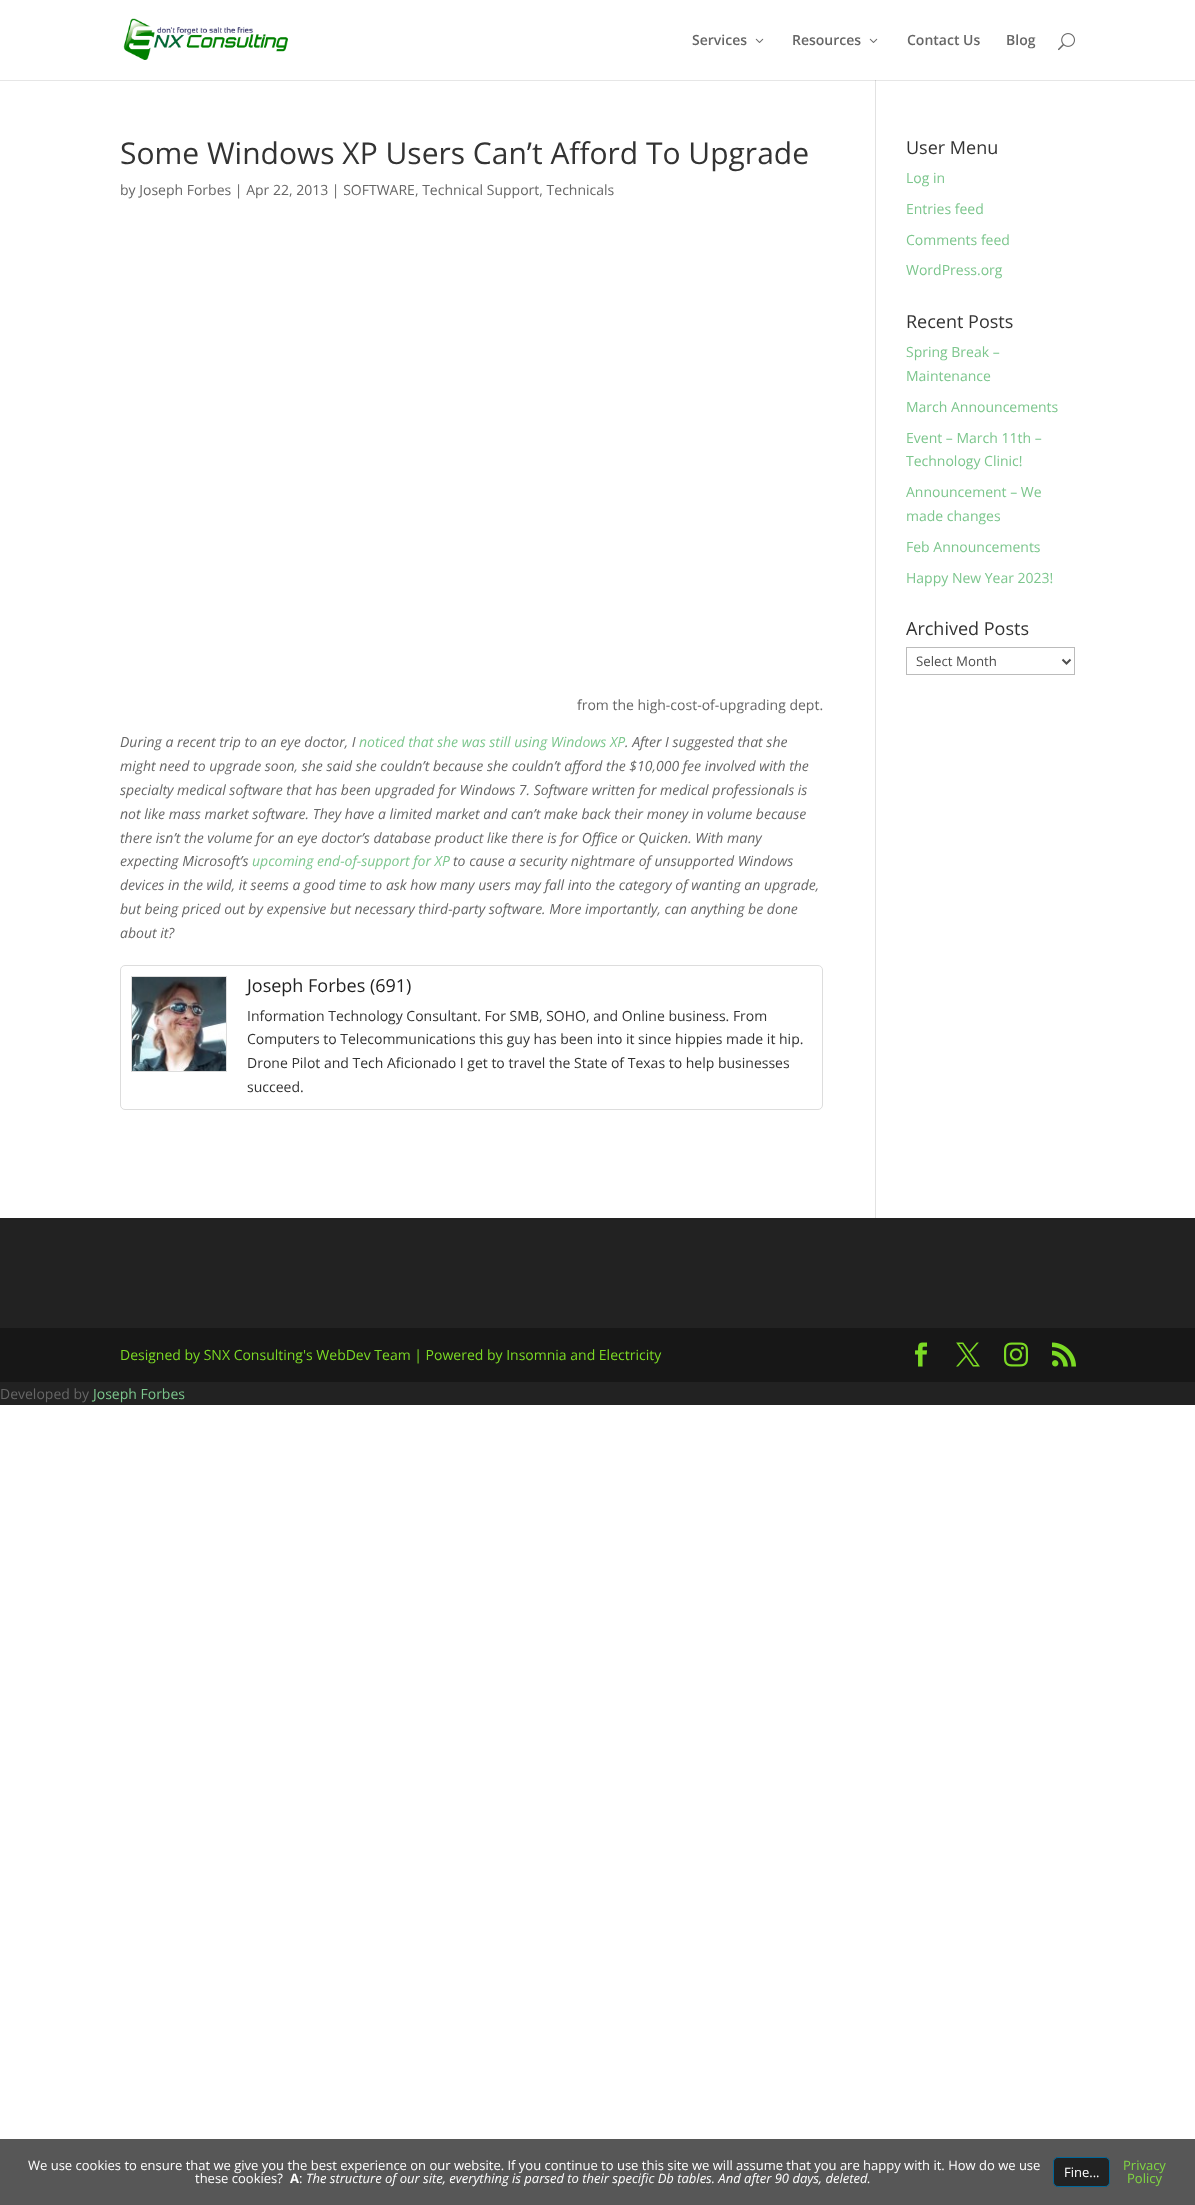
<svg xmlns="http://www.w3.org/2000/svg" width="1195" height="2205">
<rect width="100%" height="100%" fill="#fff"/>
<rect y="80" width="1195" height="1" fill="#e6e6e6"/>
<image x="123" y="18" width="165" height="42" href="media/1.png"/>
<text x="692" y="45" style="font-family:Open Sans;font-size:14px;font-weight:600;fill:#666">Services</text>
<image x="755" y="38" width="9" height="5" href="media/2.png"/>
<text x="792" y="45" style="font-family:Open Sans;font-size:14px;font-weight:600;fill:#666">Resources</text>
<image x="869" y="38" width="9" height="5" href="media/2.png"/>
<text x="907" y="45" style="font-family:Open Sans;font-size:14px;font-weight:600;fill:#666">Contact Us</text>
<text x="1006" y="45" style="font-family:Open Sans;font-size:14px;font-weight:600;fill:#666">Blog</text>
<image x="1058" y="33" width="17" height="18" href="media/3.png"/>
<rect x="875" y="80" width="1" height="1138" fill="#e2e2e2"/>
<rect x="875" y="80" width="1" height="1" fill="#cbcbcb"/>
<text x="120" y="164" style="font-family:Open Sans;font-size:30px;fill:#333">Some Windows XP Users Can’t Afford To Upgrade</text>
<text x="120" y="195" style="font-family:Open Sans;font-size:14px;fill:#666">by Joseph Forbes | Apr 22, 2013 | SOFTWARE, Technical Support, Technicals</text>
<text x="577" y="710" style="font-family:Open Sans;font-size:14px;fill:#666">from the high-cost-of-upgrading dept.</text>
<text x="120" y="747" style="font-family:Open Sans;font-size:14px;font-style:italic;fill:#666">During a recent trip to an eye doctor, I</text>
<text x="359" y="747" style="font-family:Open Sans;font-size:14px;font-style:italic;fill:#7cc68d">noticed that she was still using Windows XP</text>
<text x="625" y="747" style="font-family:Open Sans;font-size:14px;font-style:italic;fill:#666">. After I suggested that she</text>
<text x="120" y="771" style="font-family:Open Sans;font-size:14px;font-style:italic;fill:#666">might need to upgrade soon, she said she couldn’t because she couldn’t afford the $10,000 fee involved with the</text>
<text x="120" y="795" style="font-family:Open Sans;font-size:14px;font-style:italic;fill:#666">specialty medical software that has been upgraded for Windows 7. Software written for medical professionals is</text>
<text x="120" y="819" style="font-family:Open Sans;font-size:14px;font-style:italic;fill:#666">not like mass market software. They have a limited market and can’t make back their money in volume because</text>
<text x="120" y="843" style="font-family:Open Sans;font-size:14px;font-style:italic;fill:#666">there isn’t the volume for an eye doctor’s database product like there is for Office or Quicken. With many</text>
<text x="120" y="866" style="font-family:Open Sans;font-size:14px;font-style:italic;fill:#666">expecting Microsoft’s</text>
<text x="252" y="866" style="font-family:Open Sans;font-size:14px;font-style:italic;fill:#7cc68d">upcoming end-of-support for XP</text>
<text x="453" y="866" style="font-family:Open Sans;font-size:14px;font-style:italic;fill:#666">to cause a security nightmare of unsupported Windows</text>
<text x="120" y="890" style="font-family:Open Sans;font-size:14px;font-style:italic;fill:#666">devices in the wild, it seems a good time to ask how many users may fall into the category of wanting an upgrade,</text>
<text x="120" y="914" style="font-family:Open Sans;font-size:14px;font-style:italic;fill:#666">but being priced out by expensive but necessary third-party software. More importantly, can anything be done</text>
<text x="120" y="938" style="font-family:Open Sans;font-size:14px;font-style:italic;fill:#666">about it?</text>
<rect x="120.5" y="965.5" width="702" height="144" rx="4.5" fill="none" stroke="#ddd"/>
<rect x="131.5" y="976.5" width="95" height="95" fill="none" stroke="#ddd"/>
<image x="132" y="977" width="94" height="94" href="media/4.png"/>
<text x="247" y="992" style="font-family:Open Sans;font-size:18px;fill:#222">Joseph Forbes (691)</text>
<text x="247" y="1021" style="font-family:Open Sans;font-size:14px;fill:#333">Information Technology Consultant. For SMB, SOHO, and Online business. From</text>
<text x="247" y="1044" style="font-family:Open Sans;font-size:14px;fill:#333">Computers to Telecommunications this guy has been into it since hippies made it hip.</text>
<text x="247" y="1068" style="font-family:Open Sans;font-size:14px;fill:#333">Drone Pilot and Tech Aficionado I get to travel the State of Texas to help businesses</text>
<text x="247" y="1092" style="font-family:Open Sans;font-size:14px;fill:#333">succeed.</text>
<text x="906" y="154" style="font-family:Open Sans;font-size:18px;fill:#333">User Menu</text>
<text x="906" y="183" style="font-family:Open Sans;font-size:14px;fill:#7cc68d">Log in</text>
<text x="906" y="214" style="font-family:Open Sans;font-size:14px;fill:#7cc68d">Entries feed</text>
<text x="906" y="245" style="font-family:Open Sans;font-size:14px;fill:#7cc68d">Comments feed</text>
<text x="906" y="275" style="font-family:Open Sans;font-size:14px;fill:#7cc68d">WordPress.org</text>
<text x="906" y="328" style="font-family:Open Sans;font-size:18px;fill:#333">Recent Posts</text>
<text x="906" y="357" style="font-family:Open Sans;font-size:14px;fill:#7cc68d">Spring Break –</text>
<text x="906" y="381" style="font-family:Open Sans;font-size:14px;fill:#7cc68d">Maintenance</text>
<text x="906" y="412" style="font-family:Open Sans;font-size:14px;fill:#7cc68d">March Announcements</text>
<text x="906" y="443" style="font-family:Open Sans;font-size:14px;fill:#7cc68d">Event – March 11th –</text>
<text x="906" y="466" style="font-family:Open Sans;font-size:14px;fill:#7cc68d">Technology Clinic!</text>
<text x="906" y="497" style="font-family:Open Sans;font-size:14px;fill:#7cc68d">Announcement – We</text>
<text x="906" y="521" style="font-family:Open Sans;font-size:14px;fill:#7cc68d">made changes</text>
<text x="906" y="552" style="font-family:Open Sans;font-size:14px;fill:#7cc68d">Feb Announcements</text>
<text x="906" y="583" style="font-family:Open Sans;font-size:14px;fill:#7cc68d">Happy New Year 2023!</text>
<text x="906" y="635" style="font-family:Open Sans;font-size:18px;fill:#333">Archived Posts</text>
<rect x="906.5" y="647.5" width="168" height="27" fill="none" stroke="#bbb"/>
<path d="M1062.5 659.5l4 4l4-4" fill="none" stroke="#4e4e4e" stroke-width="2"/>
<text x="916" y="666" style="font-family:Open Sans;font-size:13.25px;fill:#4e4e4e">Select Month</text>
<rect y="1218" width="1195" height="187" fill="#222"/>
<rect y="1328" width="1195" height="54" fill="#171717"/>
<text x="120" y="1360" style="font-family:Open Sans;font-size:14px;fill:#7cda24">Designed by SNX Consulting's WebDev Team | Powered by Insomnia and Electricity</text>
<image x="915" y="1342" width="13" height="25" href="media/5.png"/>
<image x="956" y="1342" width="24" height="25" href="media/6.png"/>
<image x="1004" y="1342" width="24" height="25" href="media/7.png"/>
<image x="1052" y="1342" width="24" height="25" href="media/8.png"/>
<text x="0" y="1399" style="font-family:Open Sans;font-size:14px;fill:#666">Developed by</text>
<text x="93" y="1399" style="font-family:Open Sans;font-size:14px;fill:#7cc68d">Joseph Forbes</text>
<rect y="2139" width="1195" height="66" fill="#575757"/>
<text x="28" y="2170" style="font-family:Open Sans;font-size:13px;fill:#fff">We use cookies to ensure that we give you the best experience on our website. If you continue to use this site we will assume that you are happy with it. How do we use</text>
<text x="195" y="2183" style="font-family:Open Sans;font-size:13px;fill:#fff">these cookies?</text>
<text x="290" y="2183" style="font-family:Open Sans;font-size:13px;font-weight:bold;fill:#fff">A</text>
<text x="299" y="2183" style="font-family:Open Sans;font-size:13px;fill:#fff">:</text>
<text x="306" y="2183" style="font-family:Open Sans;font-size:13px;font-style:italic;fill:#fff">The structure of our site, everything is parsed to their specific Db tables. And after 90 days, deleted.</text>
<rect x="1053.5" y="2157.5" width="56" height="29" rx="4.5" fill="#222" stroke="#006799"/>
<text x="1064" y="2177" style="font-family:Open Sans;font-size:13px;fill:#fff">Fine...</text>
<text x="1123" y="2170" style="font-family:Open Sans;font-size:13px;fill:#81d742">Privacy</text>
<text x="1127" y="2183" style="font-family:Open Sans;font-size:13px;fill:#81d742">Policy</text>
</svg>
